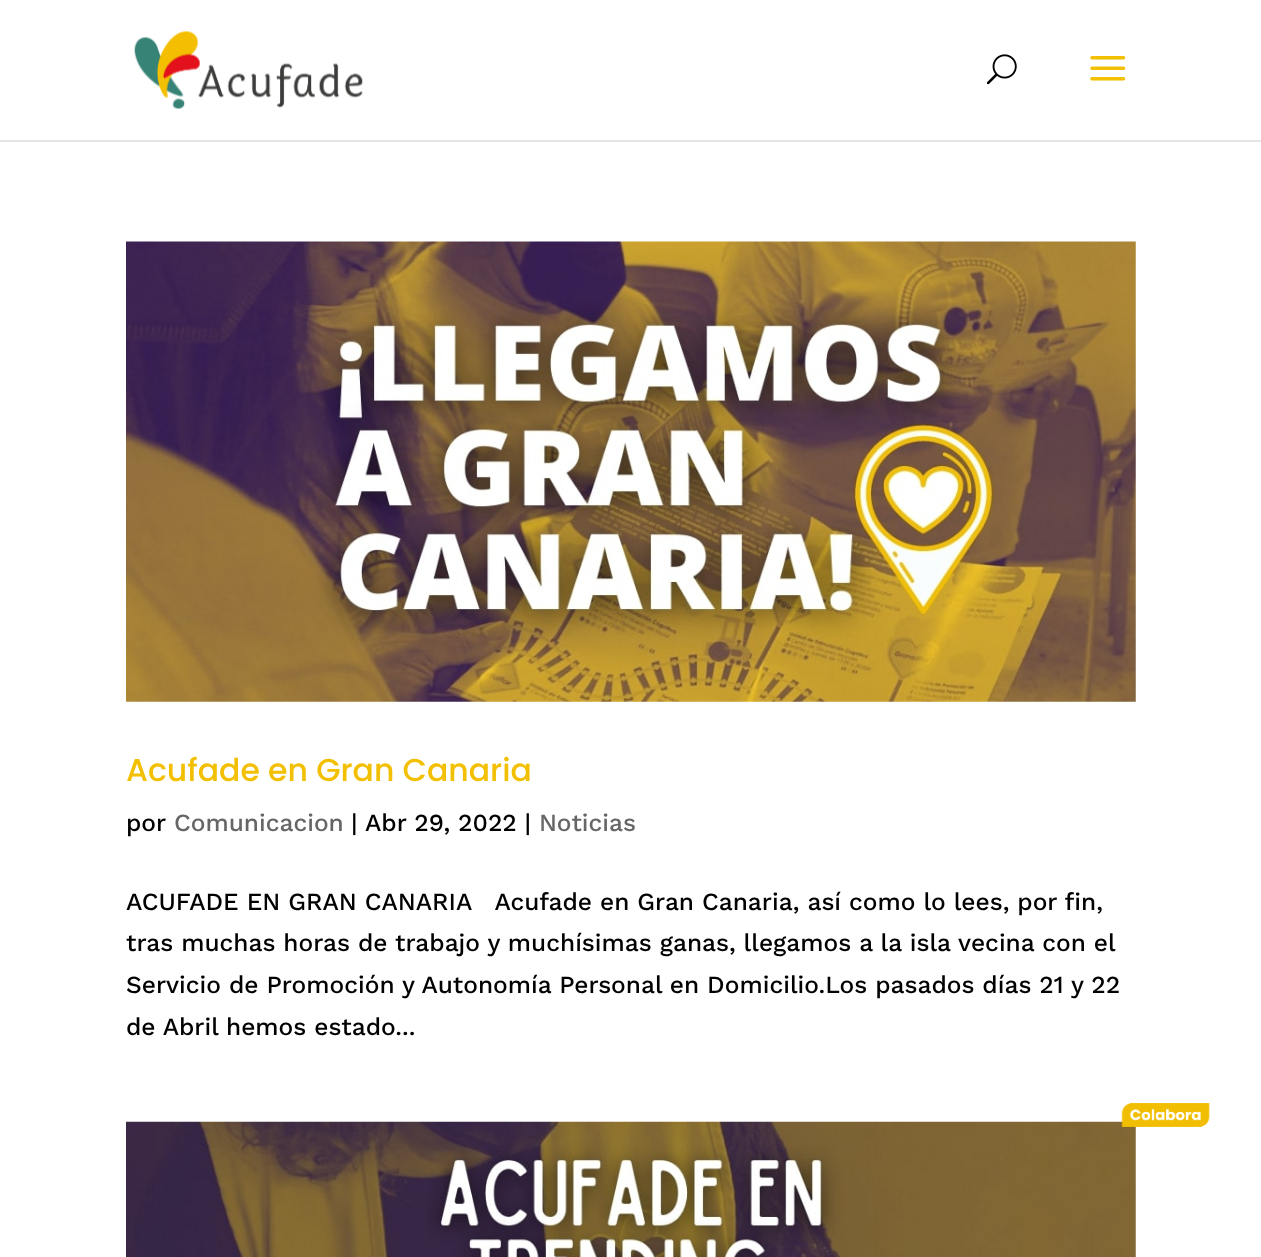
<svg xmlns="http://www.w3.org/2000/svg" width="1261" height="1257">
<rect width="100%" height="100%" fill="#fff"/>
<path d="M0 140v2h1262v-140v138z" fill="#e6e6e6"/>
<image x="134" y="31" width="229" height="78" href="media/1.png"/>
<image x="986" y="54" width="31" height="31" href="media/2.png"/>
<image x="1090" y="56" width="36" height="25" href="media/3.png"/>
<image x="126" y="241" width="1010" height="461" href="media/4.png"/>
<text x="126" y="781" style="font-family:Poppins;font-size:31.5px;font-weight:500;fill:#f3bf01">Acufade en Gran Canaria</text>
<text x="126" y="831" style="font-family:Work Sans;font-size:24.5px;font-weight:500;fill:#000">por</text>
<text x="174" y="831" style="font-family:Work Sans;font-size:24.5px;font-weight:500;fill:#666">Comunicacion</text>
<text x="351" y="831" style="font-family:Work Sans;font-size:24.5px;font-weight:500;fill:#000">|</text>
<text x="365" y="831" style="font-family:Work Sans;font-size:24.5px;font-weight:500;fill:#000">Abr 29, 2022 |</text>
<text x="539" y="831" style="font-family:Work Sans;font-size:24.5px;font-weight:500;fill:#666">Noticias</text>
<text x="126" y="910" style="font-family:Work Sans;font-size:24.5px;font-weight:500;fill:#000" xml:space="preserve">ACUFADE EN GRAN CANARIA   Acufade en Gran Canaria, así como lo lees, por fin,</text>
<text x="126" y="951" style="font-family:Work Sans;font-size:24.5px;font-weight:500;fill:#000">tras muchas horas de trabajo y muchísimas ganas, llegamos a la isla vecina con el</text>
<text x="126" y="993" style="font-family:Work Sans;font-size:24.5px;font-weight:500;fill:#000">Servicio de Promoción y Autonomía Personal en Domicilio.Los pasados días 21 y 22</text>
<text x="126" y="1035" style="font-family:Work Sans;font-size:24.5px;font-weight:500;fill:#000">de Abril hemos estado...</text>
<image x="126" y="1121" width="1010" height="136" href="media/5.png"/>
<image x="1121" y="1103" width="89" height="24" href="media/6.png"/>
</svg>
